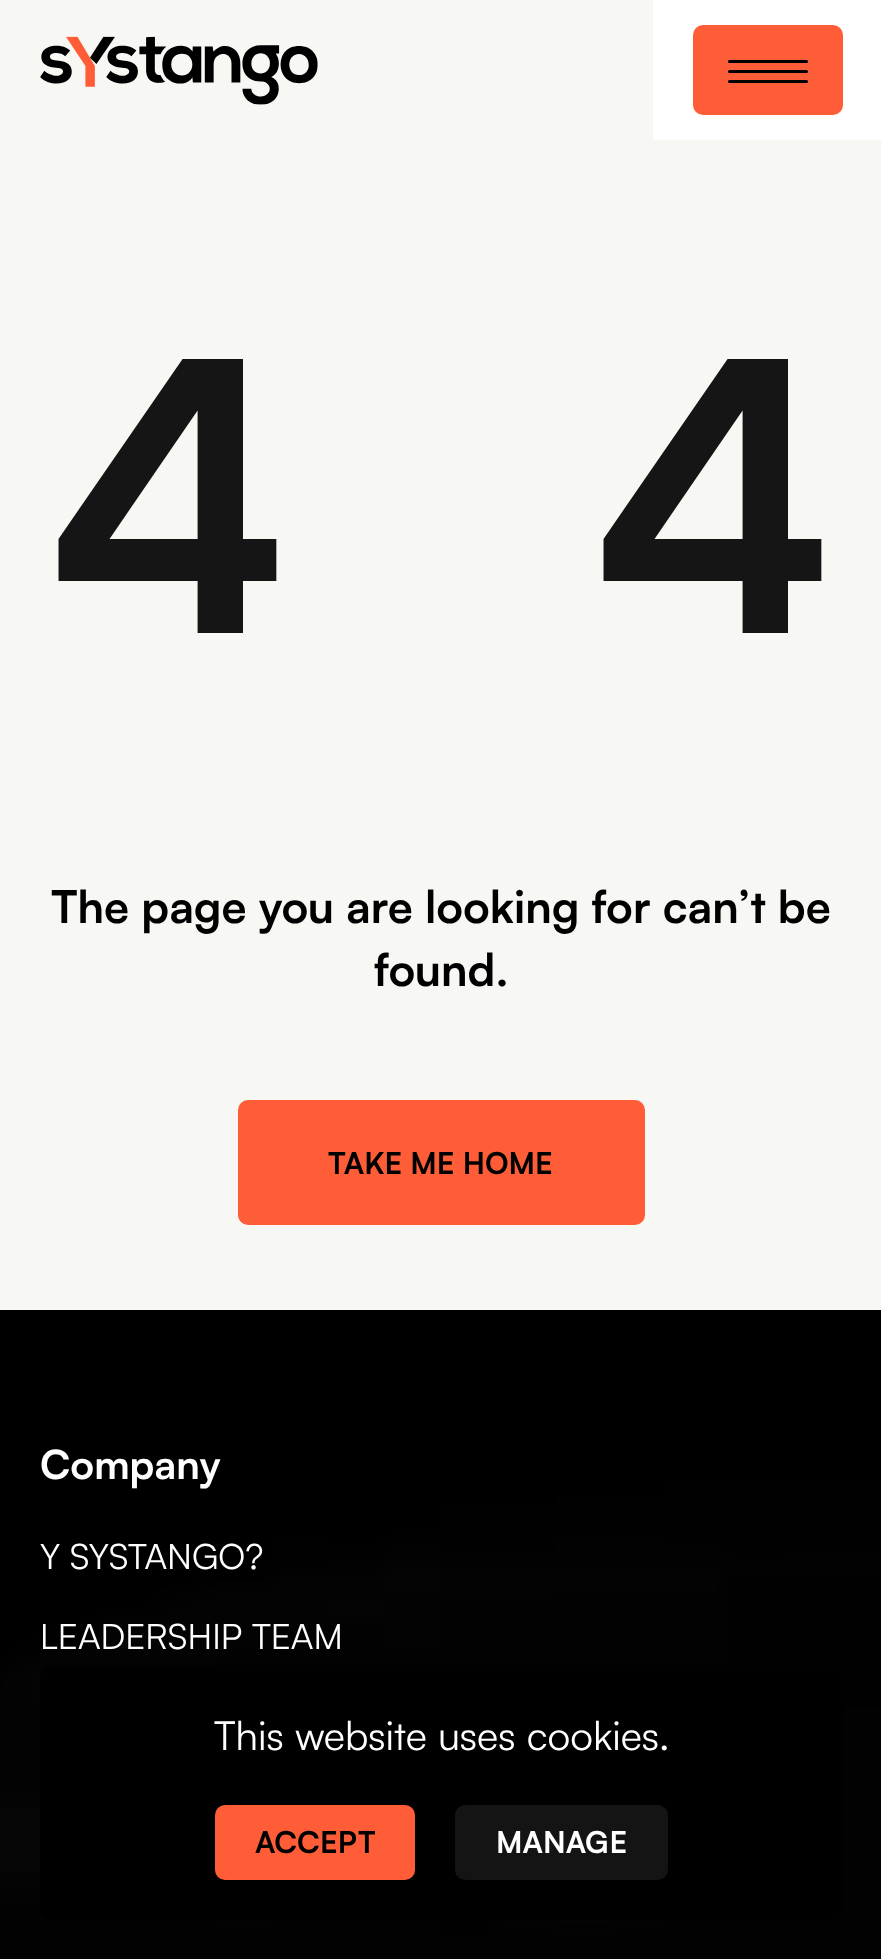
<svg xmlns="http://www.w3.org/2000/svg" width="881" height="1959">
<defs>
<clipPath id="clip1"><rect x="255" y="1820" width="120" height="45"/></clipPath>
</defs>
<rect width="100%" height="100%" fill="#f7f8f3"/>
<rect x="653" width="228" height="140" fill="#fff"/>
<image x="40" y="36" width="278" height="69" href="media/1.png"/>
<rect x="693" y="25" width="150" height="90" rx="10" fill="#ff5c38"/>
<rect x="728" y="60" width="80" height="3" rx="1.5" fill="#000"/>
<rect x="728" y="70" width="80" height="3" rx="1.5" fill="#000"/>
<rect x="728" y="80" width="80" height="3" rx="1.5" fill="#000"/>
<text x="48" y="633" style="font-family:Satoshi;font-size:375px;font-weight:bold;fill:#151515">4</text>
<text x="593" y="633" style="font-family:Satoshi;font-size:375px;font-weight:bold;fill:#151515">4</text>
<text x="51" y="923" style="font-family:Satoshi;font-size:45px;font-weight:bold;fill:#000">The page you are looking for can’t be</text>
<text x="374" y="986" style="font-family:Satoshi;font-size:45px;font-weight:bold;fill:#000">found.</text>
<rect x="238" y="1100" width="407" height="125" rx="10" fill="#ff5c38"/>
<text x="328" y="1174" style="font-family:Satoshi;font-size:30px;font-weight:bold;fill:#000">TAKE ME HOME</text>
<image x="0" y="1310" width="881" height="649" href="media/2.png"/>
<text x="40" y="1479" style="font-family:Satoshi;font-size:40px;font-weight:bold;fill:#fff">Company</text>
<text x="40" y="1569" style="font-family:Satoshi;font-size:35px;fill:#fff">Y SYSTANGO?</text>
<text x="40" y="1649" style="font-family:Satoshi;font-size:35px;fill:#fff">LEADERSHIP TEAM</text>
<rect x="40" y="1665" width="803" height="255" rx="10" fill="#000"/>
<text x="214" y="1750" style="font-family:Satoshi;font-size:40px;fill:#fff">This website uses cookies.</text>
<rect x="215" y="1805" width="200" height="75" rx="10" fill="#ff5c38"/>
<text x="255" y="1853" style="font-family:Satoshi;font-size:30px;font-weight:bold;fill:#000">ACCEP</text>
<g clip-path="url(#clip1)">
<text x="358" y="1853" style="font-family:Satoshi;font-size:30px;font-weight:bold;fill:#000">T</text>
</g>
<rect x="455" y="1805" width="213" height="75" rx="10" fill="#141414"/>
<text x="496" y="1853" style="font-family:Satoshi;font-size:30px;font-weight:bold;fill:#fff">MANAGE</text>
</svg>
